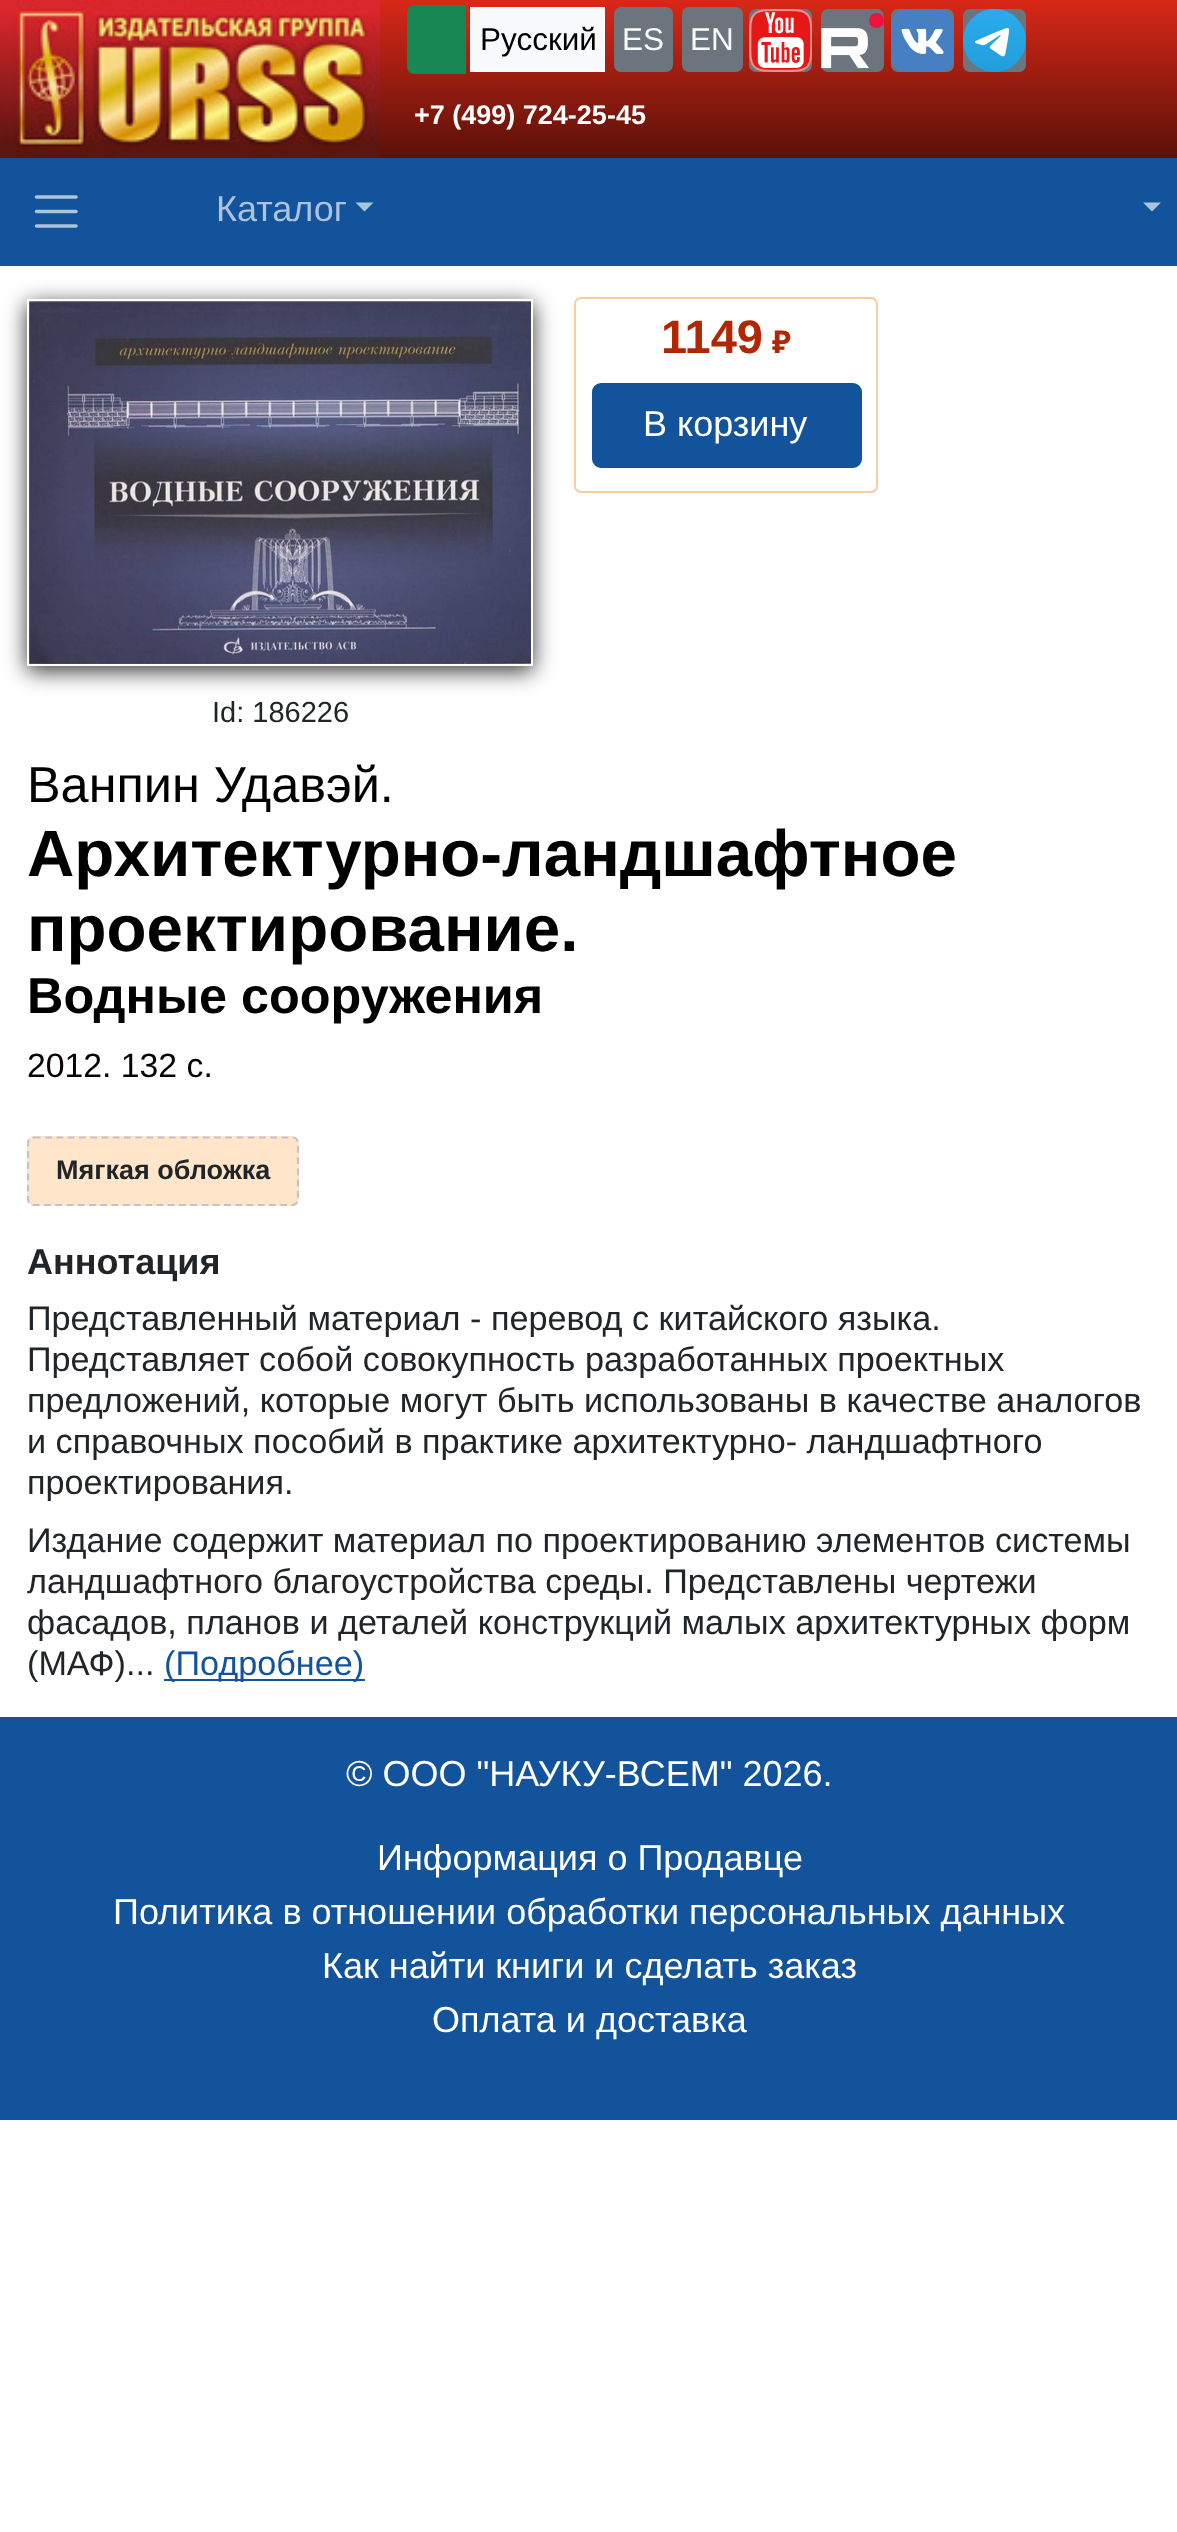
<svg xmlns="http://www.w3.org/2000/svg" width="1177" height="2532">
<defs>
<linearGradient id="g1" gradientUnits="userSpaceOnUse" x1="190" y1="0" x2="190" y2="158"><stop offset="0" stop-color="#d82818"/><stop offset="1" stop-color="#5b1108"/></linearGradient>
<linearGradient id="g2" gradientUnits="userSpaceOnUse" x1="780" y1="0" x2="780" y2="158"><stop offset="0" stop-color="#d82818"/><stop offset="1" stop-color="#5b1108"/></linearGradient>
</defs>
<rect width="100%" height="100%" fill="#fff"/>
<rect y="157" width="380" height="1" fill="url(#g1)"/>
<image x="0" y="0" width="380" height="158" href="media/1.png"/>
<rect x="380" width="797" height="158" fill="url(#g2)"/>
<path d="M414 6h51v67h-51c-3.5 0-6-2.5-6-6v-55c0-3.5 2.5-6 6-6z" fill="#198754" stroke="#198754" stroke-width="2"/>
<rect x="470" y="7" width="135" height="65" fill="#f8f9fa"/>
<text x="480" y="50" style="font-family:Liberation Sans;font-size:31.5px;fill:#000">Русский</text>
<rect x="614" y="7" width="59" height="65" rx="7" fill="#6c757d"/>
<text x="622" y="50" style="font-family:Liberation Sans;font-size:31.5px;fill:#f8f9fa">ES</text>
<rect x="682" y="7" width="61" height="65" rx="7" fill="#6c757d"/>
<text x="690" y="50" style="font-family:Liberation Sans;font-size:31.5px;fill:#f8f9fa">EN</text>
<rect x="749" y="9" width="63" height="63" rx="7" fill="#6c757d"/>
<image x="749" y="9" width="63" height="63" href="media/2.png"/>
<rect x="821" y="9" width="63" height="63" rx="7" fill="#6c757d"/>
<image x="821" y="12" width="63" height="57" href="media/3.png"/>
<rect x="891" y="9" width="63" height="63" rx="7" fill="#6c757d"/>
<image x="891" y="9" width="63" height="63" href="media/4.png"/>
<rect x="963" y="9" width="63" height="63" rx="7" fill="#6c757d"/>
<image x="963" y="9" width="63" height="63" href="media/5.png"/>
<text x="414" y="124" style="font-family:Liberation Sans;font-size:27px;font-weight:bold;fill:#fff">+7 (499) 724-25-45</text>
<rect y="158" width="1177" height="108" fill="#13539b"/>
<path d="M36.5 197h39.5m-39.5 14.5h39.5m-39.5 14.5h39.5" fill="none" stroke="#acc3dc" stroke-width="3.6" stroke-linecap="round"/>
<text x="216" y="221" style="font-family:Liberation Sans;font-size:36px;fill:#acc3dc">Каталог</text>
<path d="M355.5 202.5h18l-9 9z" fill="#acc3dc"/>
<path d="M1143 202.5h18l-9 9z" fill="#acc3dc"/>
<rect x="575" y="298" width="302" height="194" rx="6" fill="none" stroke="#fc9" stroke-width="2"/>
<text x="661" y="353" style="font-family:Liberation Sans;font-size:47px;font-weight:bold;fill:#b12704">1149</text>
<text x="772" y="353" style="font-family:Noto Sans;font-size:31.5px;font-weight:bold;fill:#b12704">₽</text>
<rect x="593" y="384" width="268" height="83" rx="8" fill="#13539b" stroke="#13539b" stroke-width="2"/>
<text x="643" y="436" style="font-family:Liberation Sans;font-size:36px;fill:#fff">В корзину</text>
<rect x="27" y="304" width="506" height="367" fill="#000000cc" filter="blur(11px)"/>
<rect x="28" y="300" width="504" height="365" fill="none" stroke="#fff" stroke-width="2"/>
<image x="29" y="301" width="502" height="363" href="media/6.png"/>
<text x="212" y="722" style="font-family:Liberation Sans;font-size:29px;fill:#212529">Id: 186226</text>
<text x="27" y="802" style="font-family:Liberation Sans;font-size:50.4px;fill:#000">Ванпин Удавэй.</text>
<text x="27" y="876" style="font-family:Liberation Sans;font-size:65.5px;font-weight:bold;fill:#000">Архитектурно-ландшафтное</text>
<text x="27" y="951" style="font-family:Liberation Sans;font-size:65.5px;font-weight:bold;fill:#000">проектирование.</text>
<text x="27" y="1013" style="font-family:Liberation Sans;font-size:50.4px;font-weight:bold;fill:#000">Водные сооружения</text>
<text x="27" y="1077" style="font-family:Liberation Sans;font-size:33.75px;fill:#080000">2012. 132 с.</text>
<rect x="27" y="1136" width="272" height="70" rx="7" fill="#ffe5ca"/>
<path d="M34 1137.5h258.5c3 0 5.5 2.5 5.5 5.5v56c0 3.5-2.5 6-5.5 6h-258.5c-3.5 0-6-2.5-6-6v-56c0-3 2.5-5.5 6-5.5z" fill="none" stroke="#c4c1cf" stroke-width="2.2" stroke-dasharray="6.75 4.5"/>
<text x="56" y="1179" style="font-family:Liberation Sans;font-size:27px;font-weight:bold;fill:#212529">Мягкая обложка</text>
<text x="27" y="1274" style="font-family:Liberation Sans;font-size:36px;font-weight:bold;fill:#212529">Аннотация</text>
<text x="27" y="1330" style="font-family:Liberation Sans;font-size:34.2px;fill:#212529">Представленный материал - перевод с китайского языка.</text>
<text x="27" y="1371" style="font-family:Liberation Sans;font-size:34.2px;fill:#212529">Представляет собой совокупность разработанных проектных</text>
<text x="27" y="1412" style="font-family:Liberation Sans;font-size:34.2px;fill:#212529">предложений, которые могут быть использованы в качестве аналогов</text>
<text x="27" y="1453" style="font-family:Liberation Sans;font-size:34.2px;fill:#212529">и справочных пособий в практике архитектурно- ландшафтного</text>
<text x="27" y="1494" style="font-family:Liberation Sans;font-size:34.2px;fill:#212529">проектирования.</text>
<text x="27" y="1552" style="font-family:Liberation Sans;font-size:34.2px;fill:#212529">Издание содержит материал по проектированию элементов системы</text>
<text x="27" y="1593" style="font-family:Liberation Sans;font-size:34.2px;fill:#212529">ландшафтного благоустройства среды. Представлены чертежи</text>
<text x="27" y="1634" style="font-family:Liberation Sans;font-size:34.2px;fill:#212529">фасадов, планов и деталей конструкций малых архитектурных форм</text>
<text x="27" y="1675" style="font-family:Liberation Sans;font-size:34.2px;fill:#212529">(МАФ)...</text>
<rect x="164" y="1679" width="201" height="2" fill="#13539b"/>
<text x="164" y="1675" style="font-family:Liberation Sans;font-size:34.2px;fill:#13539b">(Подробнее)</text>
<rect y="1717" width="1177" height="403" fill="#13539b"/>
<text x="346" y="1786" style="font-family:Liberation Sans;font-size:36px;fill:#fff">© ООО "НАУКУ-ВСЕМ" 2026.</text>
<text x="377" y="1870" style="font-family:Liberation Sans;font-size:36px;fill:#fff">Информация о Продавце</text>
<text x="113" y="1924" style="font-family:Liberation Sans;font-size:36px;fill:#fff">Политика в отношении обработки персональных данных</text>
<text x="322" y="1978" style="font-family:Liberation Sans;font-size:36px;fill:#fff">Как найти книги и сделать заказ</text>
<text x="432" y="2032" style="font-family:Liberation Sans;font-size:36px;fill:#fff">Оплата и доставка</text>
</svg>
